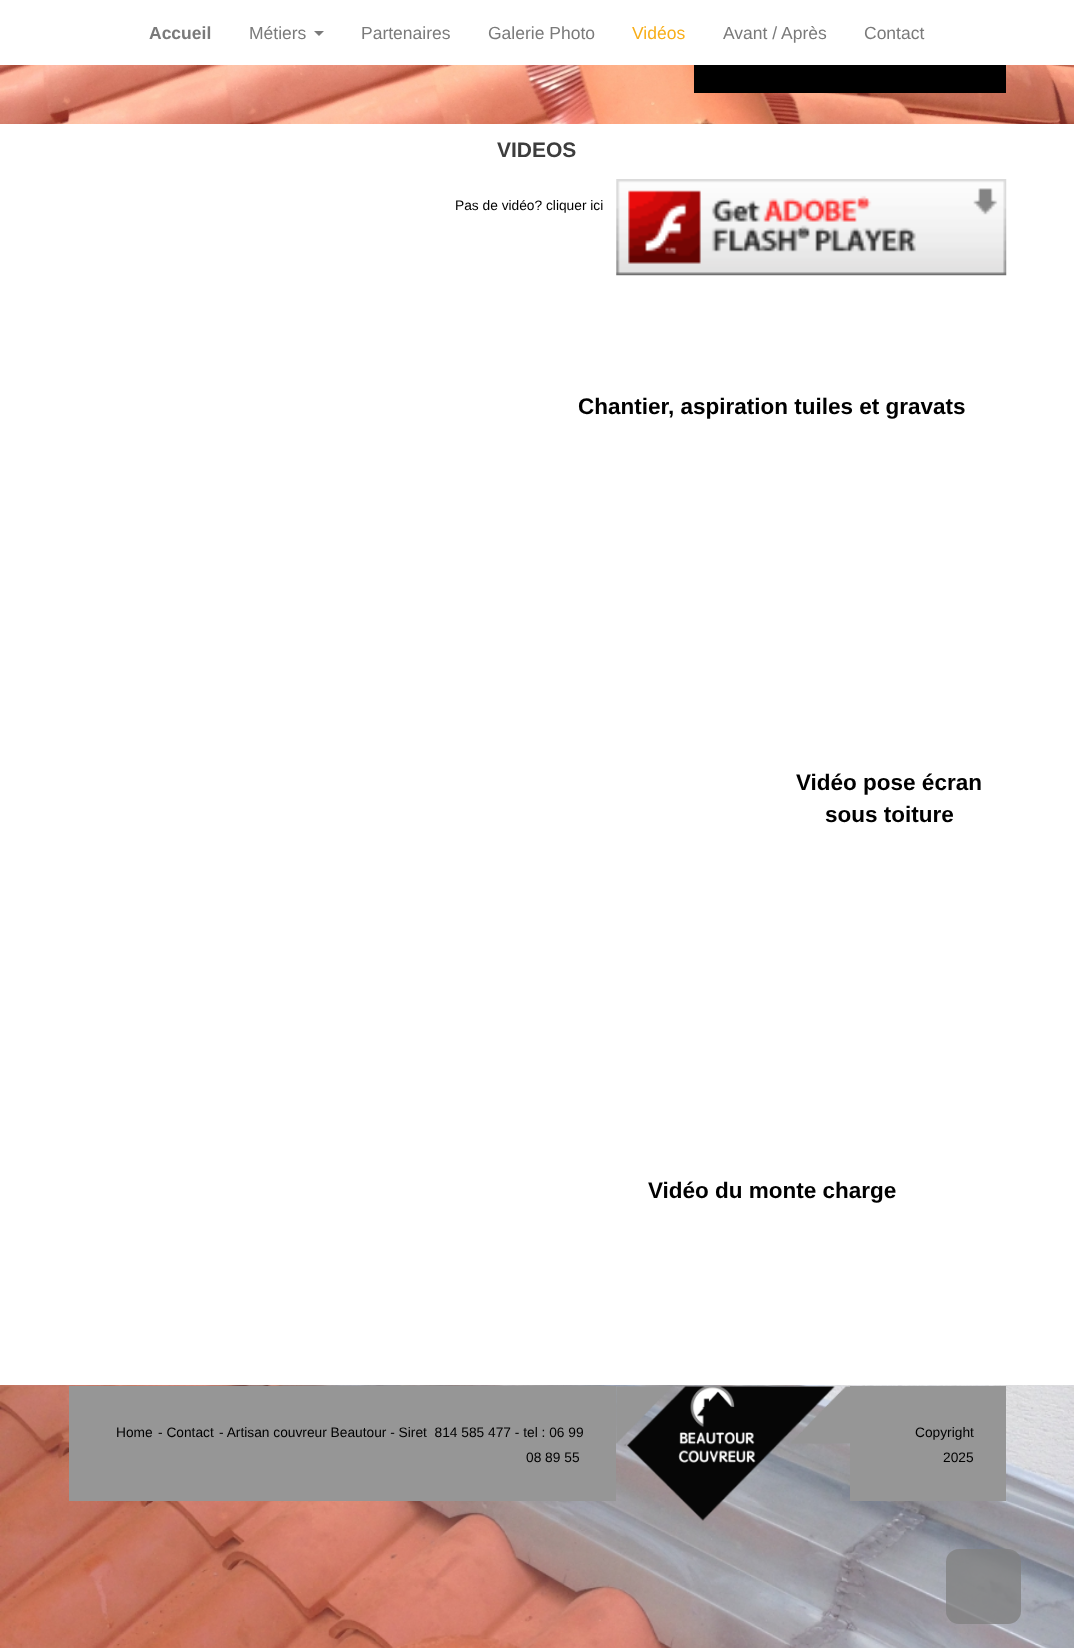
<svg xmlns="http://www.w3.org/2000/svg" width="1074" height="1648">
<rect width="100%" height="100%" fill="#fff"/>
<image x="0" y="65" width="1074" height="59" href="media/1.png"/>
<text x="149" y="39" style="font-family:Liberation Sans;font-size:17.5px;font-weight:bold;fill:#7a7a7a">Accueil</text>
<text x="249" y="39" style="font-family:Liberation Sans;font-size:17.5px;fill:#7a7a7a">Métiers</text>
<path d="M314 31h10l-5 5z" fill="#7a7a7a"/>
<text x="361" y="39" style="font-family:Liberation Sans;font-size:17.5px;fill:#7a7a7a">Partenaires</text>
<text x="488" y="39" style="font-family:Liberation Sans;font-size:17.5px;fill:#7a7a7a">Galerie Photo</text>
<text x="632" y="39" style="font-family:Liberation Sans;font-size:17.5px;fill:#f8ae19">Vidéos</text>
<text x="723" y="39" style="font-family:Liberation Sans;font-size:17.5px;fill:#7a7a7a">Avant / Après</text>
<text x="864" y="39" style="font-family:Liberation Sans;font-size:17.5px;fill:#7a7a7a">Contact</text>
<rect x="694" y="65" width="312" height="28" fill="#000"/>
<text x="497" y="157" style="font-family:Liberation Sans;font-size:21px;font-weight:bold;fill:#3d3d3d">VIDEOS</text>
<text x="455" y="210" style="font-family:Liberation Sans;font-size:13.75px;fill:#000">Pas de vidéo? cliquer ici</text>
<image x="616" y="179" width="391" height="97" href="media/2.png"/>
<text x="578" y="414" style="font-family:Liberation Sans;font-size:22.5px;font-weight:bold;fill:#000">Chantier, aspiration tuiles et gravats</text>
<text x="796" y="790" style="font-family:Liberation Sans;font-size:22.5px;font-weight:bold;fill:#000">Vidéo pose écran</text>
<text x="825" y="822" style="font-family:Liberation Sans;font-size:22.5px;font-weight:bold;fill:#000">sous toiture</text>
<text x="648" y="1198" style="font-family:Liberation Sans;font-size:22.5px;font-weight:bold;fill:#000">Vidéo du monte charge</text>
<image x="0" y="1385" width="1074" height="2" href="media/3.png"/>
<image x="0" y="1386" width="1074" height="262" href="media/4.png"/>
<rect x="69" y="1386" width="547" height="115" fill="#969696"/>
<text x="116" y="1437" style="font-family:Liberation Sans;font-size:13.75px;fill:#000">Home</text>
<text x="158" y="1437" style="font-family:Liberation Sans;font-size:13.75px;fill:#000">- Contact</text>
<text x="219" y="1437" style="font-family:Liberation Sans;font-size:13.75px;fill:#000" xml:space="preserve">- Artisan couvreur Beautour - Siret  814 585 477 - tel : 06 99</text>
<text x="526" y="1462" style="font-family:Liberation Sans;font-size:13.75px;fill:#000">08 89 55</text>
<image x="616" y="1386" width="234" height="135" href="media/5.png"/>
<rect x="850" y="1386" width="156" height="115" fill="#969696"/>
<text x="915" y="1437" style="font-family:Liberation Sans;font-size:13.75px;fill:#000">Copyright</text>
<text x="943" y="1462" style="font-family:Liberation Sans;font-size:13.75px;fill:#000">2025</text>
<rect x="946" y="1549" width="75" height="75" rx="13" fill="#818181cc"/>
</svg>
